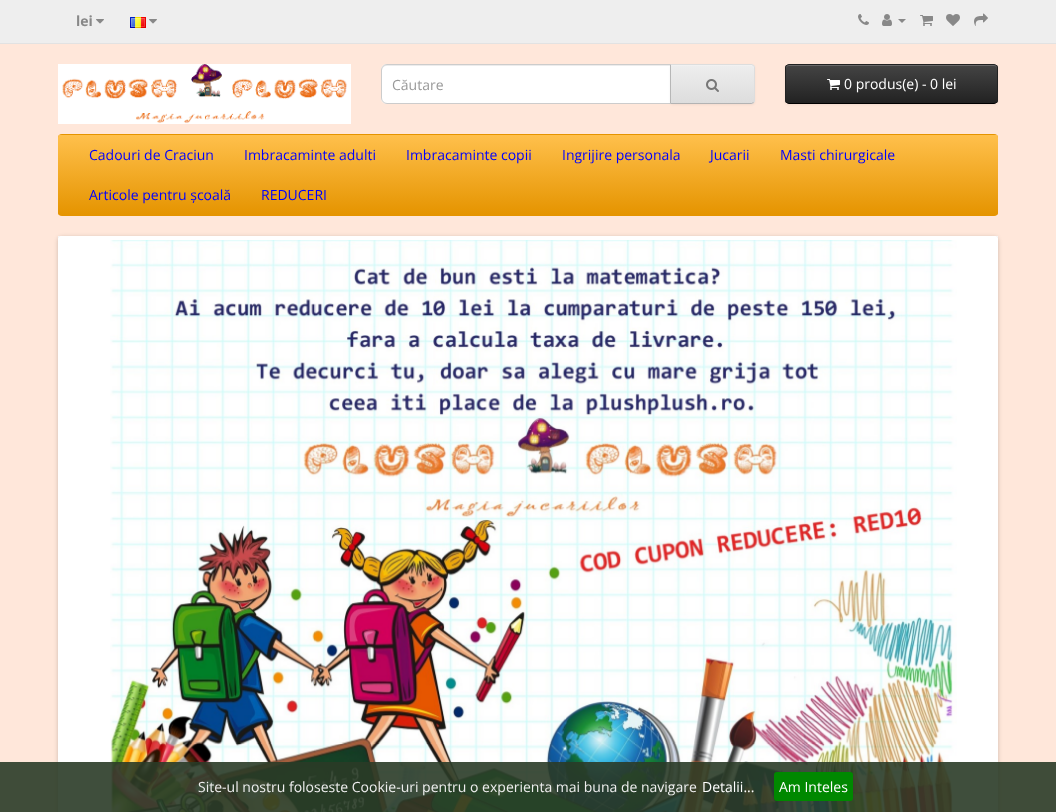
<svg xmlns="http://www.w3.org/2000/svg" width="1056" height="812">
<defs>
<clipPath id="clip1"><path d="M670 64h81c2 0 4 2 4 4v32c0 2-2 4-4 4h-81z"/></clipPath>
<linearGradient id="g1" gradientUnits="userSpaceOnUse" x1="713" y1="65" x2="713" y2="103"><stop offset="0" stop-color="#eee"/><stop offset="1" stop-color="#ddd"/></linearGradient>
<clipPath id="clip2"><rect x="785" y="64" width="213" height="40" rx="4"/></clipPath>
<linearGradient id="g2" gradientUnits="userSpaceOnUse" x1="892" y1="65" x2="892" y2="103"><stop offset="0" stop-color="#444"/><stop offset="1" stop-color="#222"/></linearGradient>
<clipPath id="clip3"><rect x="58" y="134" width="940" height="82" rx="4"/></clipPath>
<linearGradient id="g3" gradientUnits="userSpaceOnUse" x1="528" y1="135" x2="528" y2="215"><stop offset="0" stop-color="#ffc04c"/><stop offset="1" stop-color="#e59400"/></linearGradient>
<clipPath id="clip4"><path d="M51 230h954v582h-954zm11 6h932c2 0 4 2 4 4v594c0 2-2 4-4 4h-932c-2 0-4-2-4-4v-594c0-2 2-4 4-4z" clip-rule="evenodd"/></clipPath>
</defs>
<rect width="100%" height="100%" fill="#ffe7da"/>
<rect width="1056" height="43" fill="#eee"/>
<rect y="43" width="1056" height="1" fill="#e2e2e2"/>
<text x="76" y="26" style="font-family:Open Sans;font-size:14px;font-weight:bold;fill:#888">lei</text>
<image x="96" y="19" width="8" height="5" href="media/1.png"/>
<image x="130" y="17" width="16" height="11" href="media/2.png"/>
<image x="149" y="19" width="8" height="5" href="media/1.png"/>
<image x="858" y="14" width="11" height="11" href="media/3.png"/>
<image x="882" y="14" width="10" height="12" href="media/4.png"/>
<path d="M898 19h8l-4 4z" fill="#888"/>
<image x="920" y="15" width="13" height="11" href="media/5.png"/>
<image x="946" y="14" width="14" height="12" href="media/6.png"/>
<image x="974" y="13" width="14" height="13" href="media/7.png"/>
<image x="58" y="64" width="293" height="60" href="media/8.png"/>
<path d="M387 64h284v40h-284c-3.5 0-6-2.5-6-6v-28c0-3.5 2.5-6 6-6z" fill="#fff"/>
<path d="M387 66h283v-1h-283c-3 0-5 2-5 5v1c0-3 2-5 5-5z" fill="#ececec"/>
<path d="M387 64.5h283.5v39h-283.5c-3 0-5.5-2.5-5.5-5.5v-28c0-3 2.5-5.5 5.5-5.5z" fill="none" stroke="#ccc"/>
<text x="392" y="90" style="font-family:Open Sans;font-size:14px;fill:#999">Căutare</text>
<rect x="670" y="65" width="85" height="40" rx="4" fill="#0000000d" filter="blur(1px)"/>
<path d="M670 64h81c2 0 4 2 4 4v32c0 2-2 4-4 4h-81z" fill="#e7e7e7"/>
<g clip-path="url(#clip1)">
<rect x="671" y="65" width="84" height="38" fill="url(#g1)"/>
</g>
<path d="M671 66h80c2 0 3 1 3 3v-1c0-2-1-3-3-3h-80z" fill="#f1f1f1"/>
<path d="M670 64l1 1h81l1 1l1-1l-3-1z" fill="#ddd"/>
<path d="M755 100v-32c0-1-.5-2-1-3l-1 1c1 0 1 1 1 2v32c0 1 0 2-1 2l1 1c.5-1 1-2 1-3z" fill="#ddd"/>
<path d="M751 104l3-1l-1-1l-1 1h-81l-1 1z" fill="#b3b3b3"/>
<path d="M670 64v40l1-1v-38z" fill="#b7b7b7"/>
<image x="706" y="79" width="13" height="13" href="media/9.png"/>
<rect x="785" y="65" width="213" height="40" rx="4" fill="#0000000d" filter="blur(1px)"/>
<g clip-path="url(#clip2)">
<rect x="785" y="65" width="213" height="38" fill="url(#g2)"/>
</g>
<path d="M789 66h205c2 0 3 1 3 3v-1c0-2-1-3-3-3h-205c-2 0-3 1-3 3v1c0-2 1-3 3-3z" fill="#696969"/>
<path d="M996.5 102.5c-.5 .5-1.5 1-2.5 1h-205c-1 0-2-.5-2.5-1" fill="none" stroke="#000"/>
<path d="M786.5 102.5c-.5-.5-1-1.5-1-2.5v-32c0-1 .5-2 1-2.5c.5-.5 1.5-1 2.5-1h205c1 0 2 .5 2.5 1c.5 .5 1 1.5 1 2.5v32c0 1-.5 2-1 2.5" fill="none" stroke="#222"/>
<image x="827" y="79" width="13" height="11" href="media/10.png"/>
<text x="844" y="89" style="font-family:Open Sans;font-size:14px;fill:#fff">0 produs(e) - 0 lei</text>
<rect x="58" y="134" width="940" height="82" rx="4" fill="#e59400"/>
<g clip-path="url(#clip3)">
<rect x="58" y="135" width="940" height="80" fill="url(#g3)"/>
</g>
<text x="89" y="160" style="font-family:Open Sans;font-size:14px;fill:#00f">Cadouri de Craciun</text>
<text x="244" y="160" style="font-family:Open Sans;font-size:14px;fill:#00f">Imbracaminte adulti</text>
<text x="406" y="160" style="font-family:Open Sans;font-size:14px;fill:#00f">Imbracaminte copii</text>
<text x="562" y="160" style="font-family:Open Sans;font-size:14px;fill:#00f">Ingrijire personala</text>
<text x="710" y="160" style="font-family:Open Sans;font-size:14px;fill:#00f">Jucarii</text>
<text x="780" y="160" style="font-family:Open Sans;font-size:14px;fill:#00f">Masti chirurgicale</text>
<text x="89" y="200" style="font-family:Open Sans;font-size:14px;fill:#00f">Articole pentru școală</text>
<text x="261" y="200" style="font-family:Open Sans;font-size:14px;fill:#00f">REDUCERI</text>
<rect x="58" y="236" width="940" height="576" fill="#fff"/>
<g clip-path="url(#clip4)">
<rect x="58" y="237" width="940" height="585" rx="4" fill="#00000033" filter="blur(2px)"/>
</g>
<rect x="60" y="238" width="936" height="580" rx="2" fill="none" stroke="#fff" stroke-width="4"/>
<image x="110" y="240" width="847" height="572" href="media/11.png"/>
<rect y="762" width="1056" height="50" fill="#2a3b27e6"/>
<text x="198" y="792" style="font-family:Open Sans;font-size:14px;fill:#eee">Site-ul nostru foloseste Cookie-uri pentru o experienta mai buna de navigare</text>
<text x="702" y="792" style="font-family:Open Sans;font-size:14px;fill:#fff">Detalii...</text>
<rect x="774" y="772" width="79" height="29" rx="3" fill="#080"/>
<text x="779" y="792" style="font-family:Open Sans;font-size:14px;fill:#fff">Am Inteles</text>
</svg>
